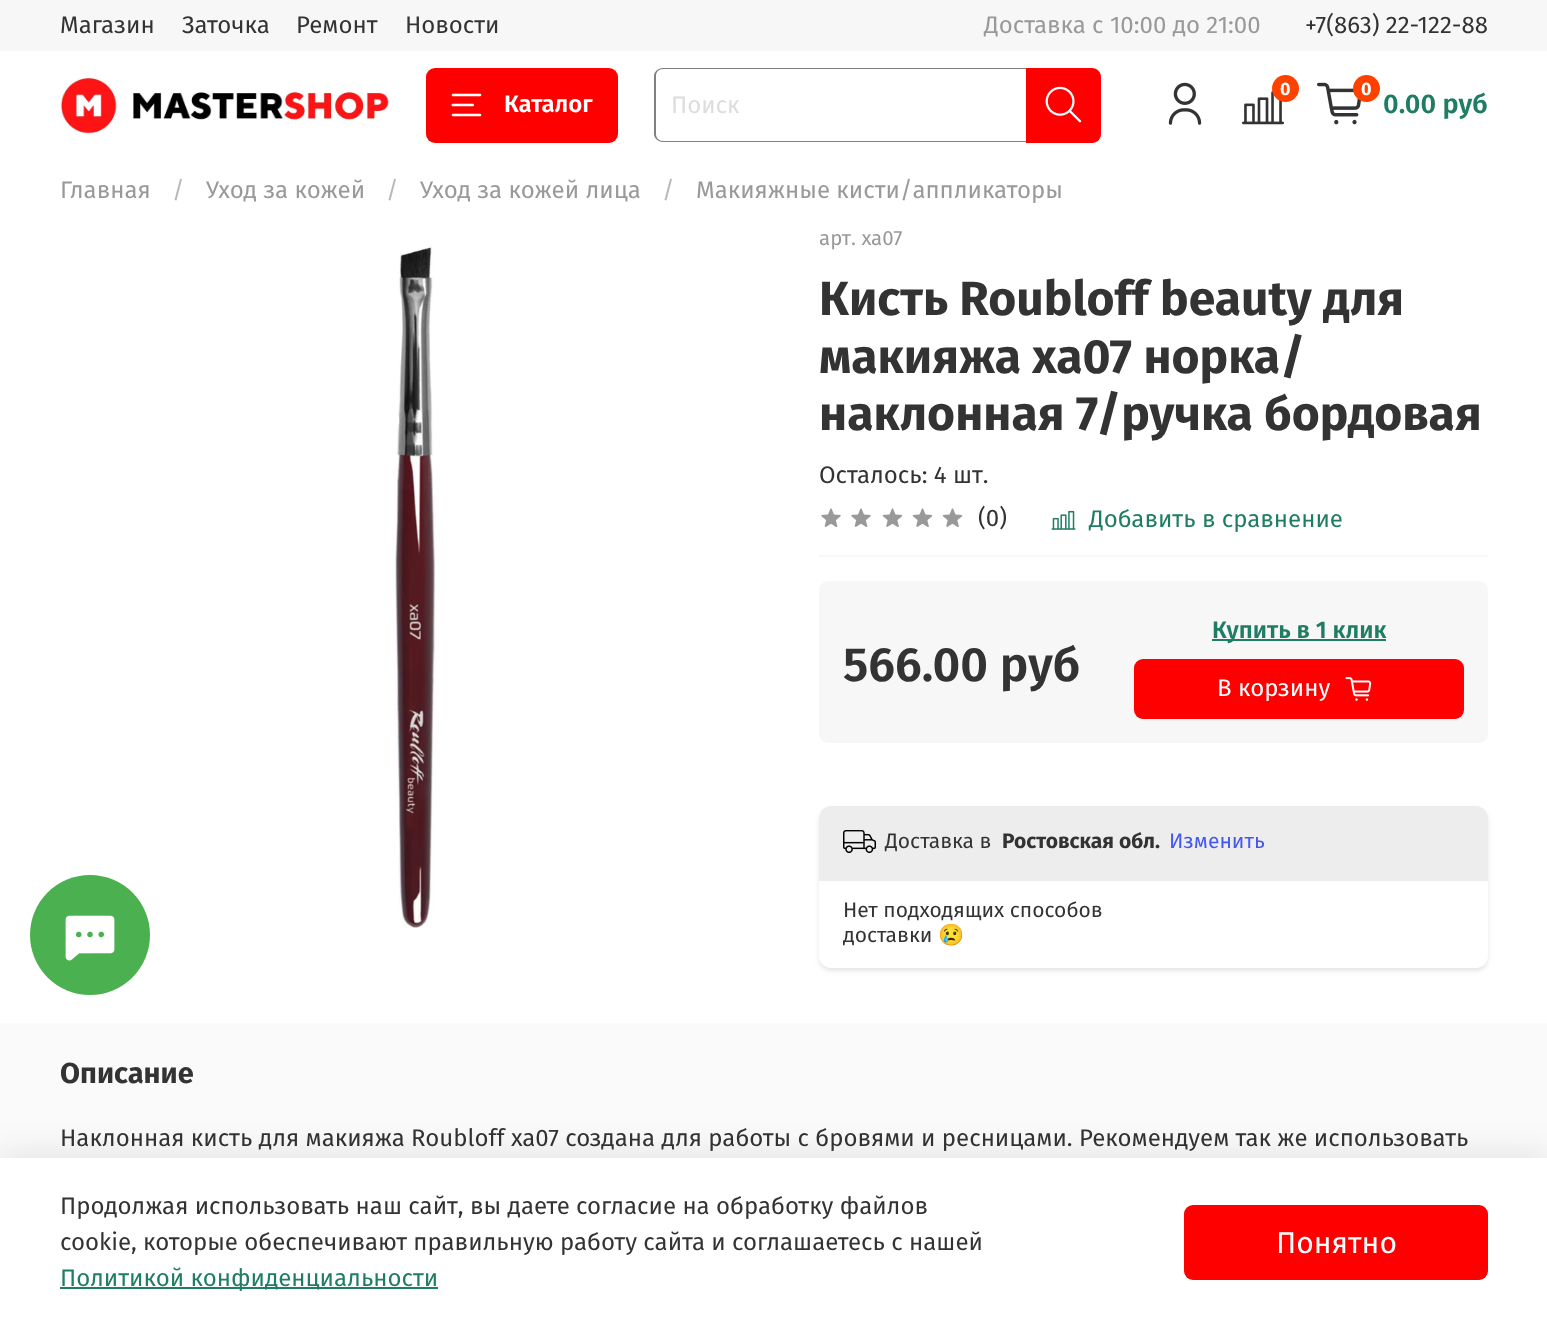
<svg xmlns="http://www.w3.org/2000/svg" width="1547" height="1327">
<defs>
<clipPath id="clip1"><path d="M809 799h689v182h-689zm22 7h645c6.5 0 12 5.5 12 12v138c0 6.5-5.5 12-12 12h-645c-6.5 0-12-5.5-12-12v-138c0-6.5 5.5-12 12-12z" clip-rule="evenodd"/></clipPath>
<clipPath id="clip2"><path d="M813 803h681v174h-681zm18 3h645c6.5 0 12 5.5 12 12v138c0 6.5-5.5 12-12 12h-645c-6.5 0-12-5.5-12-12v-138c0-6.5 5.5-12 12-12z" clip-rule="evenodd"/></clipPath>
</defs>
<rect width="100%" height="100%" fill="#fff"/>
<rect width="1547" height="51" fill="#f7f7f7"/>
<text x="60" y="33" style="font-family:Fira Sans;font-size:24px;fill:#333">Магазин</text>
<text x="182" y="33" style="font-family:Fira Sans;font-size:24px;fill:#333">Заточка</text>
<text x="296" y="33" style="font-family:Fira Sans;font-size:24px;fill:#333">Ремонт</text>
<text x="405" y="33" style="font-family:Fira Sans;font-size:24px;fill:#333">Новости</text>
<text x="984" y="33" style="font-family:Fira Sans;font-size:24px;fill:#999">Доставка с 10:00 до 21:00</text>
<text x="1305" y="33" style="font-family:Fira Sans;font-size:24px;fill:#333">+7(863) 22-122-88</text>
<image x="60" y="77" width="329" height="57" href="media/1.png"/>
<rect x="426" y="68" width="192" height="75" rx="9" fill="#f00"/>
<image x="451" y="93" width="31" height="24" href="media/2.png"/>
<text x="504" y="112" style="font-family:Fira Sans;font-size:24px;font-weight:600;fill:#fff">Каталог</text>
<path d="M663 68h363v74h-363c-5 0-9-4-9-8v-58c0-4 4-8 9-8zm0 1h363v72h-363c-4 0-7-3-7-7v-58c0-4 3-7 7-7z" fill="#808080" fill-rule="evenodd"/>
<text x="671" y="113" style="font-family:Fira Sans;font-size:24px;fill:#ddd">Поиск</text>
<path d="M1026 68h66c5 0 9 4 9 9v57c0 5-4 9-9 9h-66z" fill="#f00"/>
<image x="1045" y="86" width="37" height="37" href="media/3.png"/>
<image x="1168" y="82" width="34" height="43" href="media/4.png"/>
<image x="1242" y="91" width="42" height="34" href="media/5.png"/>
<circle cx="1285.5" cy="88.5" r="13.5" fill="#ff4100"/>
<text x="1280" y="95" style="font-family:Fira Sans;font-size:18px;font-weight:bold;fill:#fff">0</text>
<image x="1317" y="82" width="44" height="43" href="media/6.png"/>
<circle cx="1366.5" cy="88.5" r="13.5" fill="#ff4100"/>
<text x="1361" y="95" style="font-family:Fira Sans;font-size:18px;font-weight:bold;fill:#fff">0</text>
<text x="1383" y="113" style="font-family:Fira Sans;font-size:27px;font-weight:600;fill:#1f7d63">0.00 руб</text>
<text x="60" y="198" style="font-family:Fira Sans;font-size:24px;fill:#999">Главная</text>
<text x="172" y="198" style="font-family:Fira Sans;font-size:24px;fill:#b8b8b8">/</text>
<text x="206" y="198" style="font-family:Fira Sans;font-size:24px;fill:#999">Уход за кожей</text>
<text x="386" y="198" style="font-family:Fira Sans;font-size:24px;fill:#b8b8b8">/</text>
<text x="420" y="198" style="font-family:Fira Sans;font-size:24px;fill:#999">Уход за кожей лица</text>
<text x="662" y="198" style="font-family:Fira Sans;font-size:24px;fill:#b8b8b8">/</text>
<text x="696" y="198" style="font-family:Fira Sans;font-size:24px;fill:#999">Макияжные кисти/аппликаторы</text>
<text x="819" y="245" style="font-family:Fira Sans;font-size:20.5px;fill:#999">арт. xa07</text>
<image x="395" y="245" width="41" height="683" href="media/7.png"/>
<text x="819" y="315" style="font-family:Fira Sans;font-size:48px;font-weight:bold;fill:#333">Кисть Roubloff beauty для</text>
<text x="819" y="373" style="font-family:Fira Sans;font-size:48px;font-weight:bold;fill:#333">макияжа xa07 норка/</text>
<text x="819" y="430" style="font-family:Fira Sans;font-size:48px;font-weight:bold;fill:#333">наклонная 7/ручка бордовая</text>
<text x="819" y="483" style="font-family:Fira Sans;font-size:24px;fill:#333">Осталось: 4 шт.</text>
<rect x="819" y="555" width="669" height="2" fill="#f7f7f7"/>
<image x="821" y="508" width="20" height="19" href="media/8.png"/>
<image x="851" y="508" width="20" height="19" href="media/8.png"/>
<image x="882" y="508" width="21" height="19" href="media/9.png"/>
<image x="912" y="508" width="21" height="19" href="media/9.png"/>
<image x="942" y="508" width="21" height="19" href="media/9.png"/>
<text x="978" y="526" style="font-family:Fira Sans;font-size:24px;fill:#333">(0)</text>
<image x="1051" y="510" width="25" height="20" href="media/10.png"/>
<text x="1089" y="527" style="font-family:Fira Sans;font-size:24px;fill:#1f7d63">Добавить в сравнение</text>
<rect x="819" y="581" width="669" height="162" rx="9" fill="#f7f7f7"/>
<text x="843" y="681" style="font-family:Fira Sans;font-size:48px;font-weight:600;fill:#333">566.00 руб</text>
<rect x="1212" y="639" width="174" height="2" fill="#1f7d63"/>
<text x="1212" y="638" style="font-family:Fira Sans;font-size:24px;font-weight:600;fill:#1f7d63">Купить в 1 клик</text>
<rect x="1134" y="659" width="330" height="60" rx="9" fill="#f00"/>
<text x="1217" y="696" style="font-family:Fira Sans;font-size:24px;fill:#fff">В корзину</text>
<image x="1345" y="677" width="27" height="24" href="media/11.png"/>
<g clip-path="url(#clip1)">
<rect x="819" y="809" width="669" height="162" rx="12" fill="#0000000d" filter="blur(3px)"/>
</g>
<g clip-path="url(#clip2)">
<rect x="819" y="809" width="669" height="162" rx="12" fill="#0000000d" filter="blur(1.5px)"/>
</g>
<path d="M831 806h645c6.5 0 12 5.5 12 12v63h-669v-63c0-6.5 5.5-12 12-12z" fill="#ededed"/>
<image x="843" y="830" width="33" height="24" href="media/12.png"/>
<text x="885" y="848" style="font-family:Fira Sans;font-size:21px;fill:#333">Доставка в</text>
<text x="1002" y="848" style="font-family:Fira Sans;font-size:21px;font-weight:bold;fill:#333">Ростовская обл.</text>
<text x="1169" y="848" style="font-family:Fira Sans;font-size:21px;fill:#4657ef">Изменить</text>
<text x="843" y="917" style="font-family:Fira Sans;font-size:21px;fill:#333">Нет подходящих способов</text>
<text x="843" y="942" style="font-family:Fira Sans;font-size:21px;fill:#333">доставки</text>
<text x="938" y="942" style="font-family:Noto Color Emoji;font-size:21px;fill:#333">😢</text>
<rect y="1023" width="1547" height="135" fill="#fafafa"/>
<text x="60" y="1083" style="font-family:Fira Sans;font-size:29px;font-weight:bold;fill:#333">Описание</text>
<text x="60" y="1146" style="font-family:Fira Sans;font-size:24px;fill:#333">Наклонная кисть для макияжа Roubloff xa07 создана для работы с бровями и ресницами. Рекомендуем так же использовать</text>
<circle cx="90" cy="935" r="60" fill="#4bb04f"/>
<image x="65" y="915" width="50" height="46" href="media/13.png"/>
<rect x="-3" y="1154" width="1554" height="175" fill="#00000017" filter="blur(17px)"/>
<rect y="1158" width="1547" height="169" fill="#fff"/>
<text x="60" y="1214" style="font-family:Fira Sans;font-size:24px;fill:#333">Продолжая использовать наш сайт, вы даете согласие на обработку файлов</text>
<text x="60" y="1250" style="font-family:Fira Sans;font-size:24px;fill:#333">cookie, которые обеспечивают правильную работу сайта и соглашаетесь с нашей</text>
<rect x="60" y="1287" width="378" height="2" fill="#1f7d63"/>
<text x="60" y="1286" style="font-family:Fira Sans;font-size:24px;fill:#1f7d63">Политикой конфиденциальности</text>
<rect x="1184" y="1205" width="304" height="75" rx="9" fill="#f00"/>
<text x="1276" y="1253" style="font-family:Fira Sans;font-size:30px;fill:#fff">Понятно</text>
</svg>
